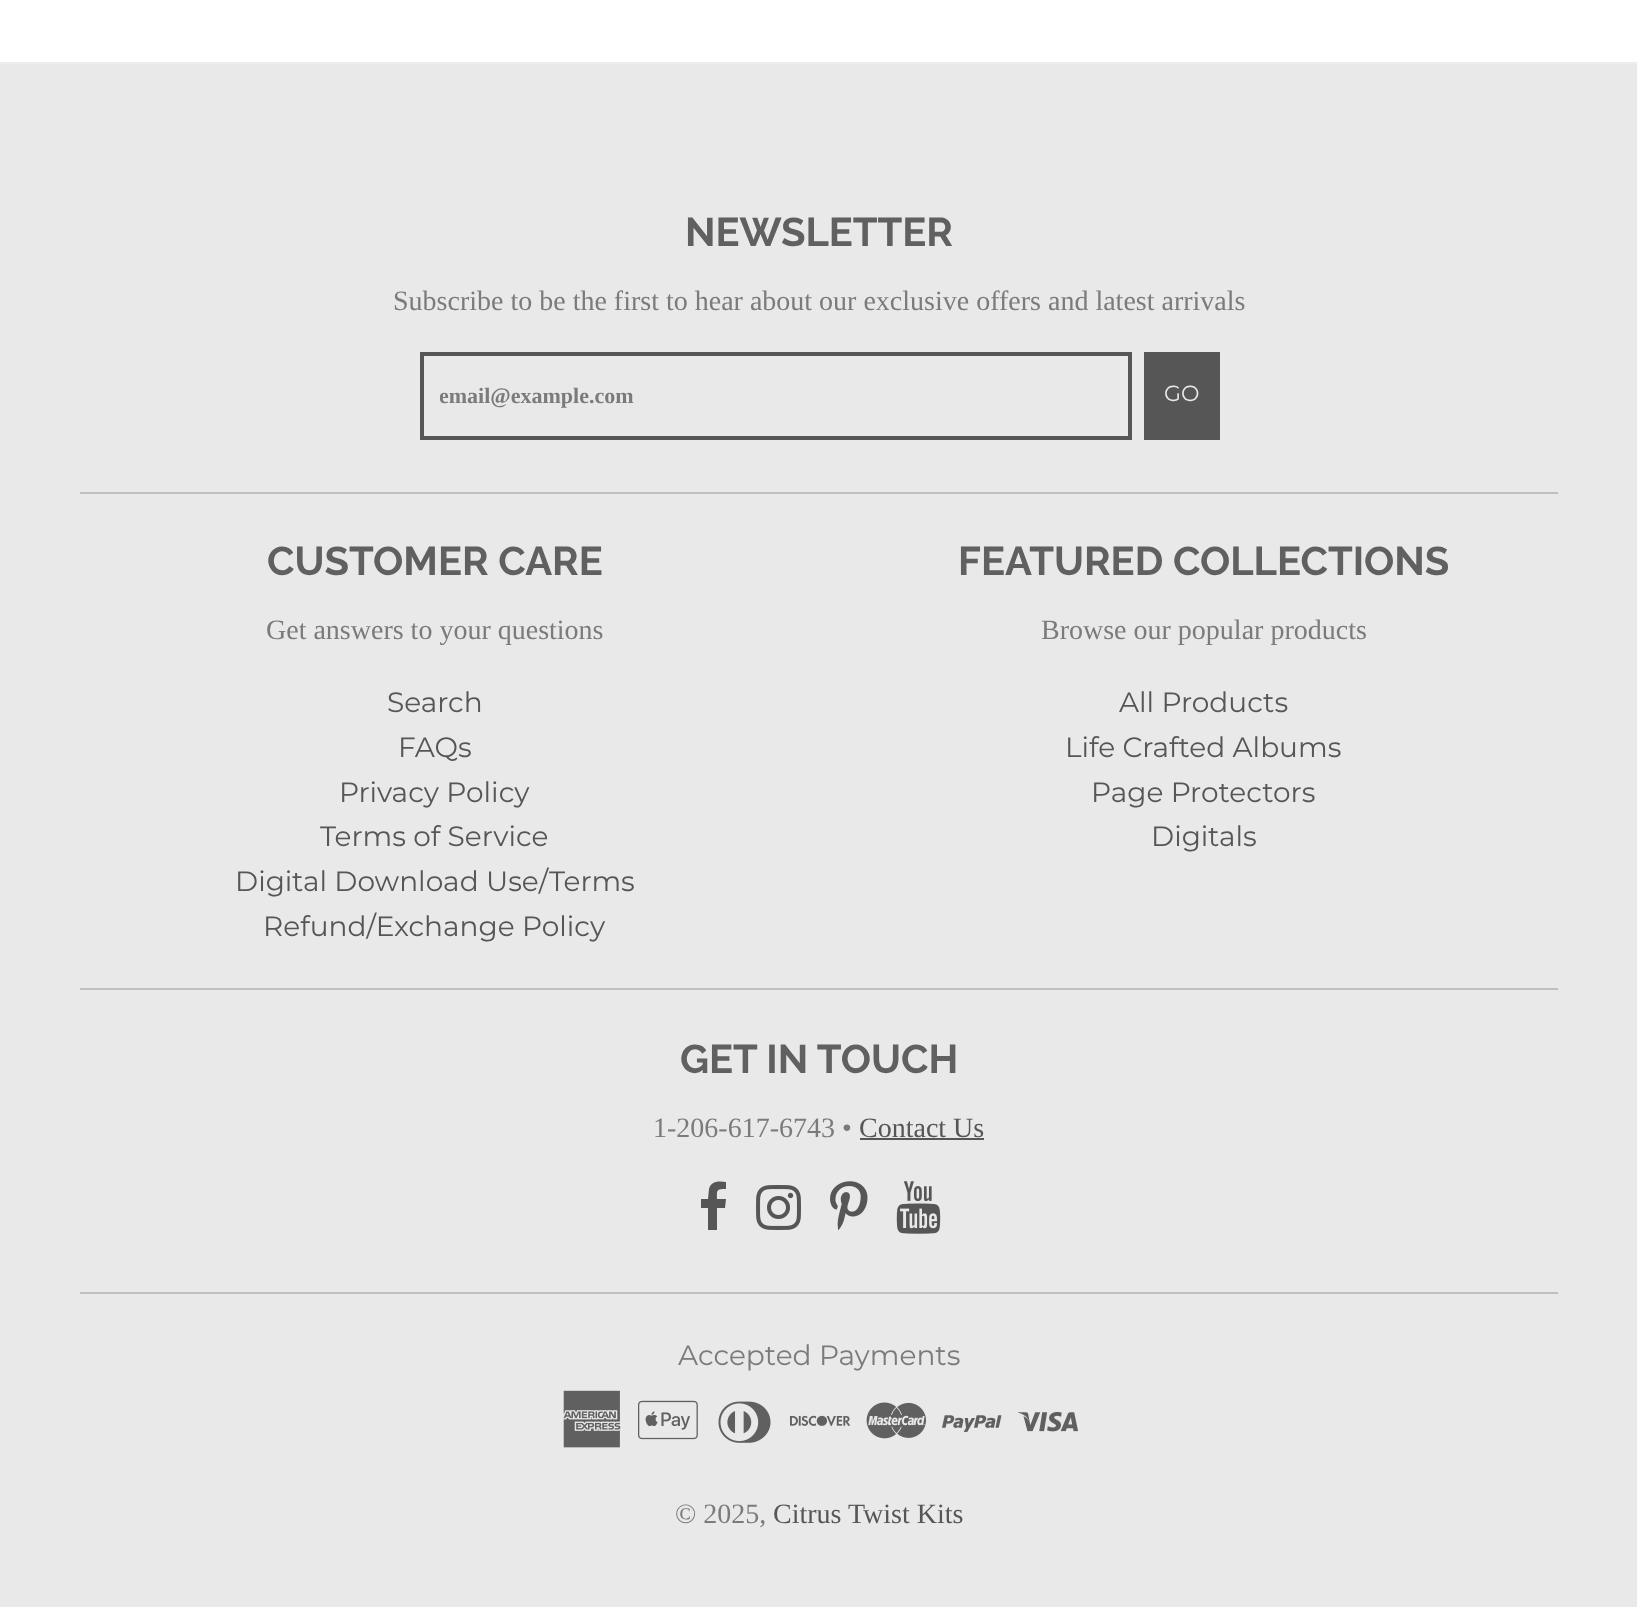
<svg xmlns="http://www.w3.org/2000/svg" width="1637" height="1607">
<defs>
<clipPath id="clip1"><rect x="440" y="384" width="672" height="24"/></clipPath>
</defs>
<rect width="100%" height="100%" fill="#fff"/>
<rect y="62" width="1637" height="2" fill="#ededed"/>
<rect y="64" width="1637" height="1543" fill="#e9e9e9"/>
<text x="685" y="246" style="font-family:Raleway;font-size:40px;font-weight:bold;fill:#606060">NEWSLETTER</text>
<text x="393" y="310" style="font-family:Liberation Serif;font-size:28px;fill:#7b7b7b">Subscribe to be the first to hear about our exclusive offers and latest arrivals</text>
<rect x="80" y="492" width="1478" height="2" fill="#bfbfbf"/>
<rect x="422" y="354" width="708" height="84" fill="none" stroke="#565656" stroke-width="4"/>
<g clip-path="url(#clip1)">
<text x="439" y="403" style="font-family:Liberation Serif;font-size:22px;font-weight:bold;fill:#7b7b7b">email@example.com</text>
</g>
<rect x="1144" y="352" width="76" height="88" fill="#565656"/>
<text x="1164" y="401" style="font-family:Montserrat;font-size:22px;fill:#e9e9e9">GO</text>
<text x="267" y="575" style="font-family:Raleway;font-size:40px;font-weight:bold;fill:#606060">CUSTOMER CARE</text>
<text x="266" y="639" style="font-family:Liberation Serif;font-size:28px;fill:#7b7b7b">Get answers to your questions</text>
<text x="387" y="712" style="font-family:Montserrat;font-size:28px;fill:#565656">Search</text>
<text x="398" y="757" style="font-family:Montserrat;font-size:28px;fill:#565656">FAQs</text>
<text x="339" y="802" style="font-family:Montserrat;font-size:28px;fill:#565656">Privacy Policy</text>
<text x="320" y="846" style="font-family:Montserrat;font-size:28px;fill:#565656">Terms of Service</text>
<text x="235" y="891" style="font-family:Montserrat;font-size:28px;fill:#565656">Digital Download Use/Terms</text>
<text x="263" y="936" style="font-family:Montserrat;font-size:28px;fill:#565656">Refund/Exchange Policy</text>
<text x="958" y="575" style="font-family:Raleway;font-size:40px;font-weight:bold;fill:#606060">FEATURED COLLECTIONS</text>
<text x="1041" y="639" style="font-family:Liberation Serif;font-size:28px;fill:#7b7b7b">Browse our popular products</text>
<text x="1119" y="712" style="font-family:Montserrat;font-size:28px;fill:#565656">All Products</text>
<text x="1065" y="757" style="font-family:Montserrat;font-size:28px;fill:#565656">Life Crafted Albums</text>
<text x="1091" y="802" style="font-family:Montserrat;font-size:28px;fill:#565656">Page Protectors</text>
<text x="1151" y="846" style="font-family:Montserrat;font-size:28px;fill:#565656">Digitals</text>
<rect x="80" y="988" width="1478" height="2" fill="#bfbfbf"/>
<text x="680" y="1073" style="font-family:Raleway;font-size:40px;font-weight:bold;fill:#606060">GET IN TOUCH</text>
<text x="653" y="1137" style="font-family:Liberation Serif;font-size:28px;fill:#7b7b7b">1-206-617-6743 •</text>
<text x="859" y="1137" style="font-family:Liberation Serif;font-size:28px;fill:#565656">Contact Us</text>
<rect x="860" y="1138" width="124" height="2" fill="#565656"/>
<path d="M726 1182v7c-10 0-9 1-9 10h9l-1 9h-8v22h-9v-22h-7v-9h7l1-10c2-8 10-8 17-7z" fill="#565656"/>
<image x="756" y="1185" width="45" height="45" href="media/1.png"/>
<image x="830" y="1181" width="38" height="49" href="media/2.png"/>
<image x="896" y="1181" width="45" height="53" href="media/3.png"/>
<rect x="80" y="1292" width="1478" height="2" fill="#bfbfbf"/>
<text x="678" y="1365" style="font-family:Montserrat;font-size:28px;fill:#7b7b7b">Accepted Payments</text>
<image x="563" y="1390" width="58" height="58" href="media/4.png"/>
<image x="638" y="1400" width="60" height="40" href="media/5.png"/>
<image x="718" y="1401" width="53" height="42" href="media/6.png"/>
<image x="790" y="1415" width="60" height="11" href="media/7.png"/>
<image x="866" y="1402" width="60" height="37" href="media/8.png"/>
<image x="942" y="1415" width="60" height="17" href="media/9.png"/>
<image x="1018" y="1411" width="60" height="21" href="media/10.png"/>
<text x="675" y="1523" style="font-family:Liberation Serif;font-size:28px;fill:#7b7b7b">© 2025,</text>
<text x="773" y="1523" style="font-family:Liberation Serif;font-size:28px;fill:#565656">Citrus Twist Kits</text>
</svg>
